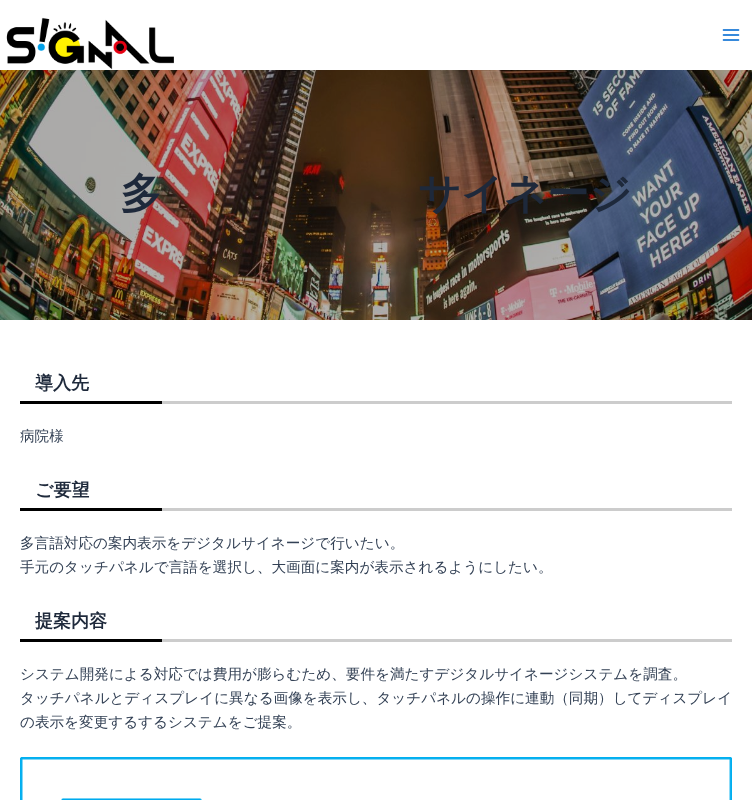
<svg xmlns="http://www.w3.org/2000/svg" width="752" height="800">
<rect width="100%" height="100%" fill="#fff"/>
<image x="6" y="17" width="168" height="53" href="media/1.png"/>
<image x="722" y="29" width="18" height="12" href="media/2.png"/>
<image x="0" y="70" width="752" height="250" href="media/3.png"/>
<text x="120" y="208" style="font-family:WenQuanYi Zen Hei;font-size:42px;font-weight:bold;fill:#1e293b">多</text>
<text x="418" y="208" style="font-family:WenQuanYi Zen Hei;font-size:42px;font-weight:bold;fill:#1e293b">サイネージ</text>
<rect x="162" y="401" width="570" height="3" fill="#ccc"/>
<text x="35" y="389" style="font-family:WenQuanYi Zen Hei;font-size:18px;font-weight:bold;fill:#1e293b">導入先</text>
<rect x="20" y="401" width="142" height="3" fill="#000"/>
<text x="20" y="441" style="font-family:WenQuanYi Zen Hei;font-size:14.6px;font-weight:500;fill:#334155">病院様</text>
<rect x="162" y="508" width="570" height="3" fill="#ccc"/>
<text x="35" y="496" style="font-family:WenQuanYi Zen Hei;font-size:18px;font-weight:bold;fill:#1e293b">ご要望</text>
<rect x="20" y="508" width="142" height="3" fill="#000"/>
<text x="20" y="548" style="font-family:WenQuanYi Zen Hei;font-size:14.6px;font-weight:500;fill:#334155">多言語対応の案内表示をデジタルサイネージで行いたい。</text>
<text x="20" y="572" style="font-family:WenQuanYi Zen Hei;font-size:14.6px;font-weight:500;fill:#334155">手元のタッチパネルで言語を選択し、大画面に案内が表示されるようにしたい。</text>
<rect x="162" y="639" width="570" height="3" fill="#ccc"/>
<text x="35" y="627" style="font-family:WenQuanYi Zen Hei;font-size:18px;font-weight:bold;fill:#1e293b">提案内容</text>
<rect x="20" y="639" width="142" height="3" fill="#000"/>
<text x="20" y="679" style="font-family:WenQuanYi Zen Hei;font-size:14.6px;font-weight:500;fill:#334155">システム開発による対応では費用が膨らむため、要件を満たすデジタルサイネージシステムを調査。</text>
<text x="20" y="703" style="font-family:WenQuanYi Zen Hei;font-size:14.6px;font-weight:500;fill:#334155">タッチパネルとディスプレイに異なる画像を表示し、タッチパネルの操作に連動（同期）してディスプレイ</text>
<text x="20" y="727" style="font-family:WenQuanYi Zen Hei;font-size:14.6px;font-weight:500;fill:#334155">の表示を変更するするシステムをご提案。</text>
<image x="20" y="757" width="712" height="43" href="media/4.png"/>
</svg>
